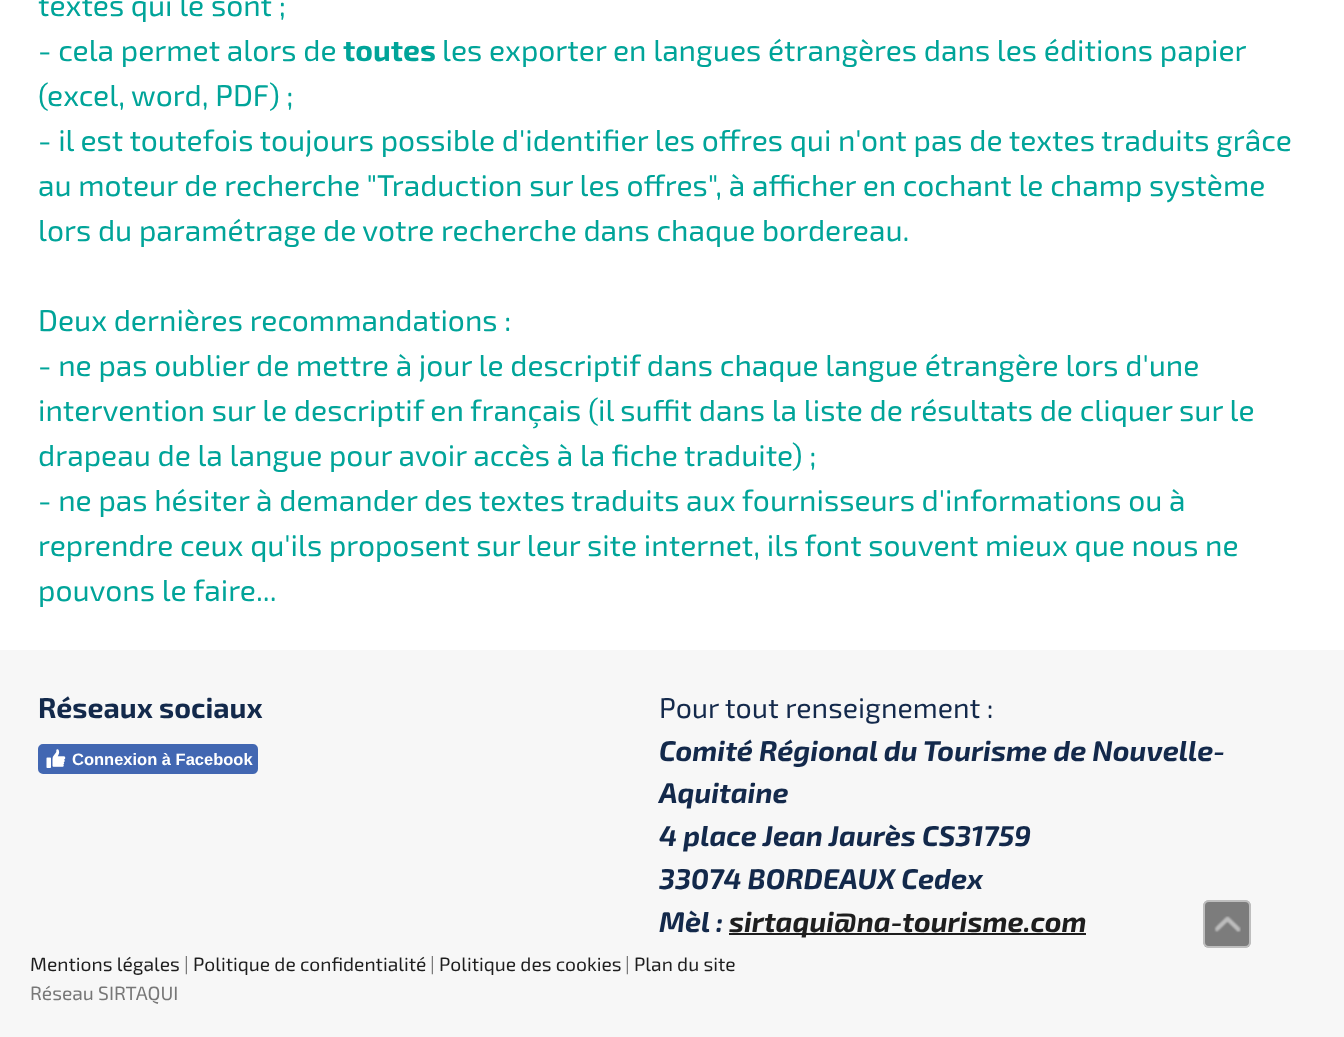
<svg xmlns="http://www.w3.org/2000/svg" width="1344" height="1037">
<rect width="100%" height="100%" fill="#f7f7f7"/>
<rect width="1344" height="650" fill="#fff"/>
<text x="38" y="16" style="font-family:'Exo 2';font-size:30px;fill:#00a499">textes qui le sont ;</text>
<text x="38" y="61" style="font-family:'Exo 2';font-size:30px;fill:#00a499">- cela permet alors de</text>
<text x="343" y="61" style="font-family:'Exo 2';font-size:30px;font-weight:bold;fill:#00a499">toutes</text>
<text x="442" y="61" style="font-family:'Exo 2';font-size:30px;fill:#00a499">les exporter en langues étrangères dans les éditions papier</text>
<text x="38" y="106" style="font-family:'Exo 2';font-size:30px;fill:#00a499">(excel, word, PDF) ;</text>
<text x="38" y="151" style="font-family:'Exo 2';font-size:30px;fill:#00a499">- il est toutefois toujours possible d'identifier les offres qui n'ont pas de textes traduits grâce</text>
<text x="38" y="196" style="font-family:'Exo 2';font-size:30px;fill:#00a499">au moteur de recherche "Traduction sur les offres", à afficher en cochant le champ système</text>
<text x="38" y="241" style="font-family:'Exo 2';font-size:30px;fill:#00a499">lors du paramétrage de votre recherche dans chaque bordereau.</text>
<text x="38" y="331" style="font-family:'Exo 2';font-size:30px;fill:#00a499">Deux dernières recommandations :</text>
<text x="38" y="376" style="font-family:'Exo 2';font-size:30px;fill:#00a499">- ne pas oublier de mettre à jour le descriptif dans chaque langue étrangère lors d'une</text>
<text x="38" y="421" style="font-family:'Exo 2';font-size:30px;fill:#00a499">intervention sur le descriptif en français (il suffit dans la liste de résultats de cliquer sur le</text>
<text x="38" y="466" style="font-family:'Exo 2';font-size:30px;fill:#00a499">drapeau de la langue pour avoir accès à la fiche traduite) ;</text>
<text x="38" y="511" style="font-family:'Exo 2';font-size:30px;fill:#00a499">- ne pas hésiter à demander des textes traduits aux fournisseurs d'informations ou à</text>
<text x="38" y="556" style="font-family:'Exo 2';font-size:30px;fill:#00a499">reprendre ceux qu'ils proposent sur leur site internet, ils font souvent mieux que nous ne</text>
<text x="38" y="601" style="font-family:'Exo 2';font-size:30px;fill:#00a499">pouvons le faire...</text>
<text x="38" y="718" style="font-family:'Exo 2';font-size:28.5px;font-weight:bold;fill:#13294b">Réseaux sociaux</text>
<rect x="39" y="745" width="218" height="28" rx="4" fill="#4267b2" stroke="#4267b2" stroke-width="2"/>
<image x="46" y="749" width="20" height="19" href="media/1.png"/>
<text x="72" y="765" style="font-family:Liberation Sans;font-size:16.5px;font-weight:bold;fill:#fff">Connexion à Facebook</text>
<text x="659" y="718" style="font-family:'Exo 2';font-size:28.5px;fill:#13294b">Pour tout renseignement :</text>
<text x="659" y="761" style="font-family:'Exo 2';font-size:28.5px;font-weight:bold;font-style:italic;fill:#13294b">Comité Régional du Tourisme de Nouvelle-</text>
<text x="659" y="803" style="font-family:'Exo 2';font-size:28.5px;font-weight:bold;font-style:italic;fill:#13294b">Aquitaine</text>
<text x="659" y="846" style="font-family:'Exo 2';font-size:28.5px;font-weight:bold;font-style:italic;fill:#13294b">4 place Jean Jaurès CS31759</text>
<text x="659" y="889" style="font-family:'Exo 2';font-size:28.5px;font-weight:bold;font-style:italic;fill:#13294b">33074 BORDEAUX Cedex</text>
<text x="659" y="932" style="font-family:'Exo 2';font-size:28.5px;font-weight:bold;font-style:italic;fill:#13294b">Mèl :</text>
<rect x="729" y="933" width="357" height="2" fill="#1e1e1e"/>
<text x="729" y="932" style="font-family:'Exo 2';font-size:28.5px;font-weight:bold;font-style:italic;fill:#1e1e1e">sirtaqui@na-tourisme.com</text>
<text x="30" y="971" style="font-family:'Exo 2';font-size:19.25px;fill:#1e1e1e">Mentions légales</text>
<text x="184" y="971" style="font-family:'Exo 2';font-size:19.25px;fill:#777">|</text>
<text x="193" y="971" style="font-family:'Exo 2';font-size:19.25px;fill:#1e1e1e">Politique de confidentialité</text>
<text x="430" y="971" style="font-family:'Exo 2';font-size:19.25px;fill:#777">|</text>
<text x="439" y="971" style="font-family:'Exo 2';font-size:19.25px;fill:#1e1e1e">Politique des cookies</text>
<text x="625" y="971" style="font-family:'Exo 2';font-size:19.25px;fill:#777">|</text>
<text x="634" y="971" style="font-family:'Exo 2';font-size:19.25px;fill:#1e1e1e">Plan du site</text>
<text x="30" y="1000" style="font-family:'Exo 2';font-size:19.25px;fill:#777">Réseau SIRTAQUI</text>
<rect x="1203" y="900" width="48" height="48" rx="6" fill="#7c7c7c"/>
<rect x="1204" y="901" width="46" height="46" rx="5" fill="none" stroke="#ffffff80" stroke-width="2"/>
<image x="1214" y="916" width="27" height="17" href="media/2.png"/>
</svg>
